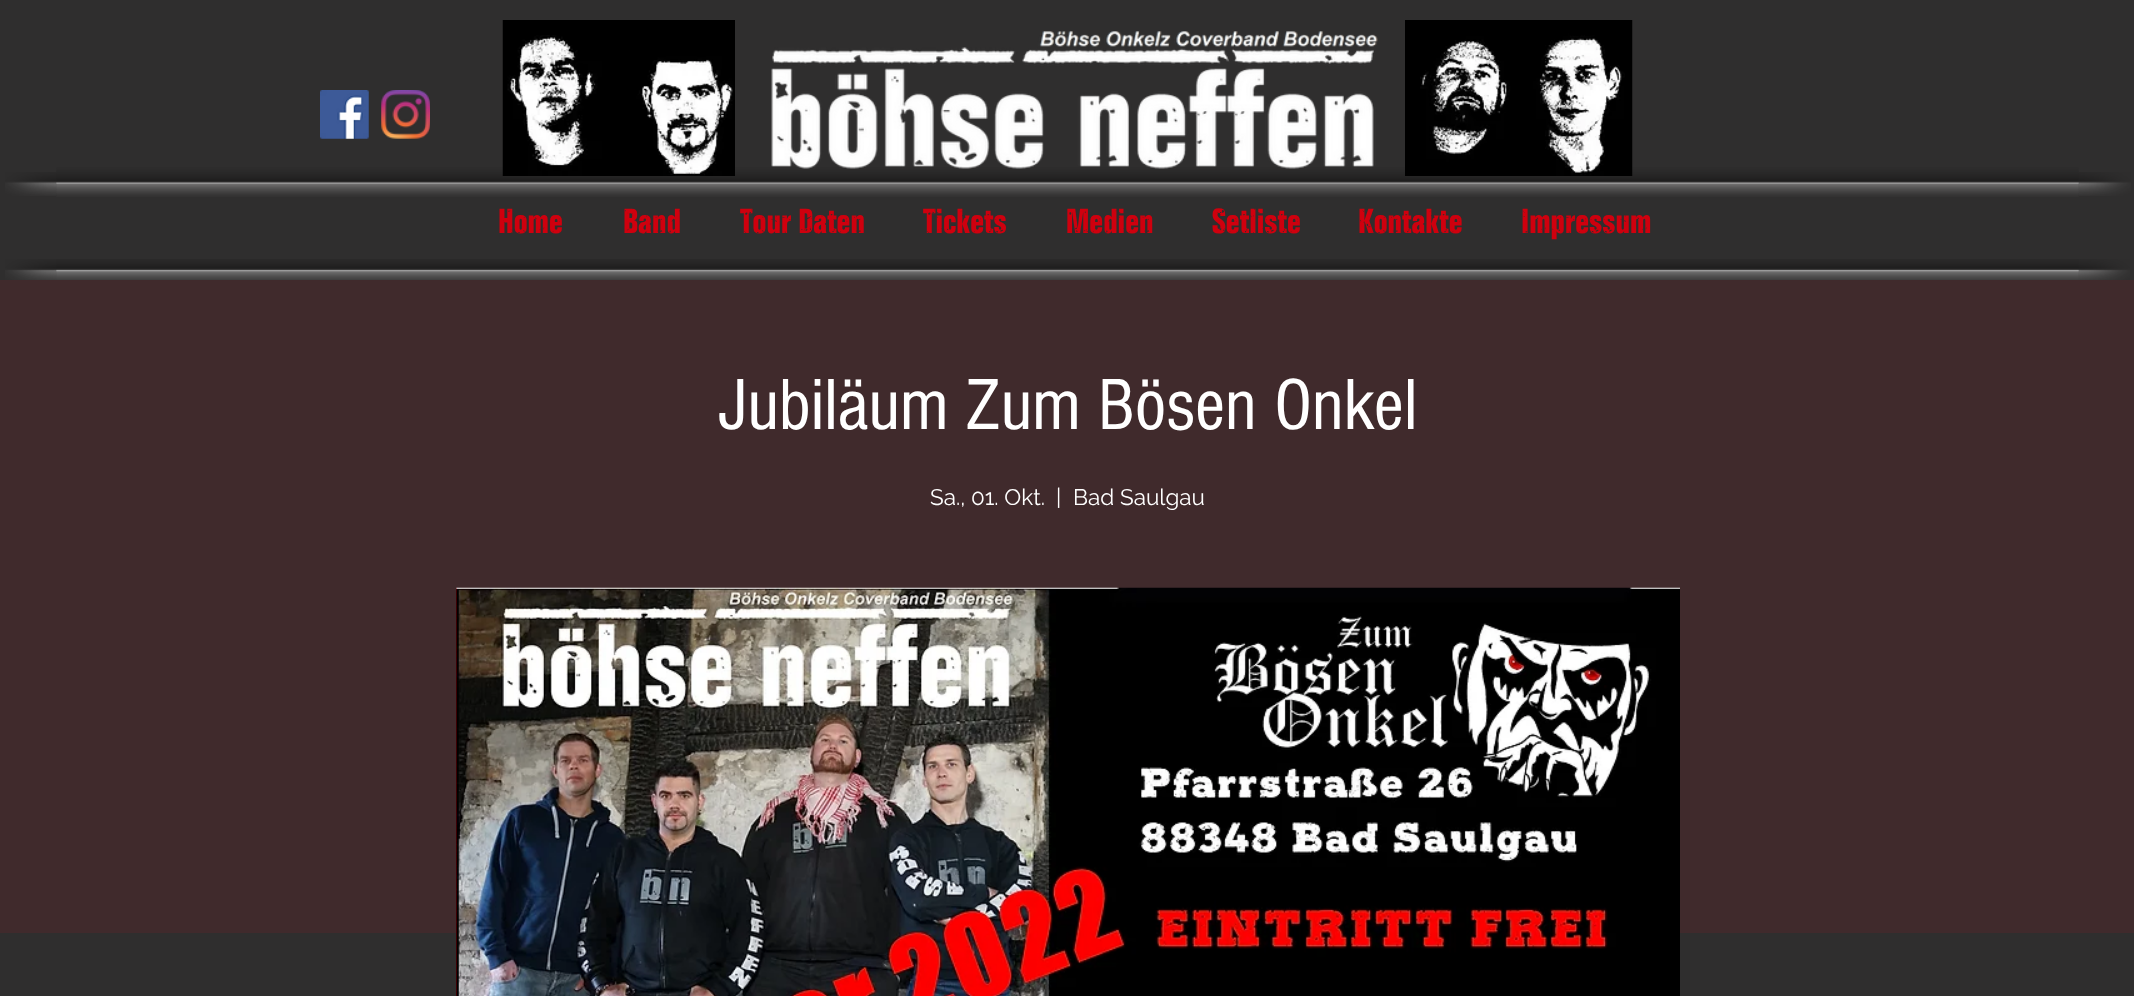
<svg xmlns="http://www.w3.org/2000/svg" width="2134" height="996">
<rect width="100%" height="100%" fill="#2f2e2e"/>
<image x="320" y="90" width="49" height="49" href="media/1.png"/>
<image x="381" y="90" width="49" height="49" href="media/2.png"/>
<image x="771" y="31" width="607" height="138" href="media/4.png"/>
<image x="56" y="167" width="2023" height="30" href="media/6.png"/>
<image x="502" y="20" width="233" height="156" href="media/3.png"/>
<image x="1405" y="20" width="228" height="156" href="media/5.png"/>
<image x="5" y="172" width="52" height="24" href="media/7.png"/>
<image x="2078" y="172" width="53" height="24" href="media/8.png"/>
<text x="498" y="233" style="font-family:'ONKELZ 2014';font-size:34px;fill:#cf000e">Home</text>
<text x="623" y="233" style="font-family:'ONKELZ 2014';font-size:34px;fill:#cf000e">Band</text>
<text x="740" y="233" style="font-family:'ONKELZ 2014';font-size:34px;fill:#cf000e">Tour Daten</text>
<text x="923" y="233" style="font-family:'ONKELZ 2014';font-size:34px;fill:#cf000e">Tickets</text>
<text x="1066" y="233" style="font-family:'ONKELZ 2014';font-size:34px;fill:#cf000e">Medien</text>
<text x="1212" y="233" style="font-family:'ONKELZ 2014';font-size:34px;fill:#cf000e">Setliste</text>
<text x="1358" y="233" style="font-family:'ONKELZ 2014';font-size:34px;fill:#cf000e">Kontakte</text>
<text x="1521" y="233" style="font-family:'ONKELZ 2014';font-size:34px;fill:#cf000e">Impressum</text>
<image x="56" y="259" width="2023" height="21" href="media/9.png"/>
<image x="5" y="259" width="52" height="21" href="media/10.png"/>
<image x="2078" y="259" width="52" height="21" href="media/11.png"/>
<rect y="280" width="2134" height="653" fill="#402a2c"/>
<text x="718" y="429" style="font-family:'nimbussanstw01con';font-size:75px;fill:#fff">Jubiläum Zum Bösen Onkel</text>
<text x="930" y="505" style="font-family:Raleway;font-size:22.5px;fill:#fff">Sa., 01. Okt.</text>
<text x="1056" y="505" style="font-family:Raleway;font-size:22.5px;fill:#fff">|</text>
<text x="1073" y="505" style="font-family:Raleway;font-size:22.5px;fill:#fff">Bad Saulgau</text>
<rect x="456" y="588" width="1" height="408" fill="#8a0009"/>
<image x="456" y="587" width="1224" height="409" href="media/12.png"/>
</svg>
